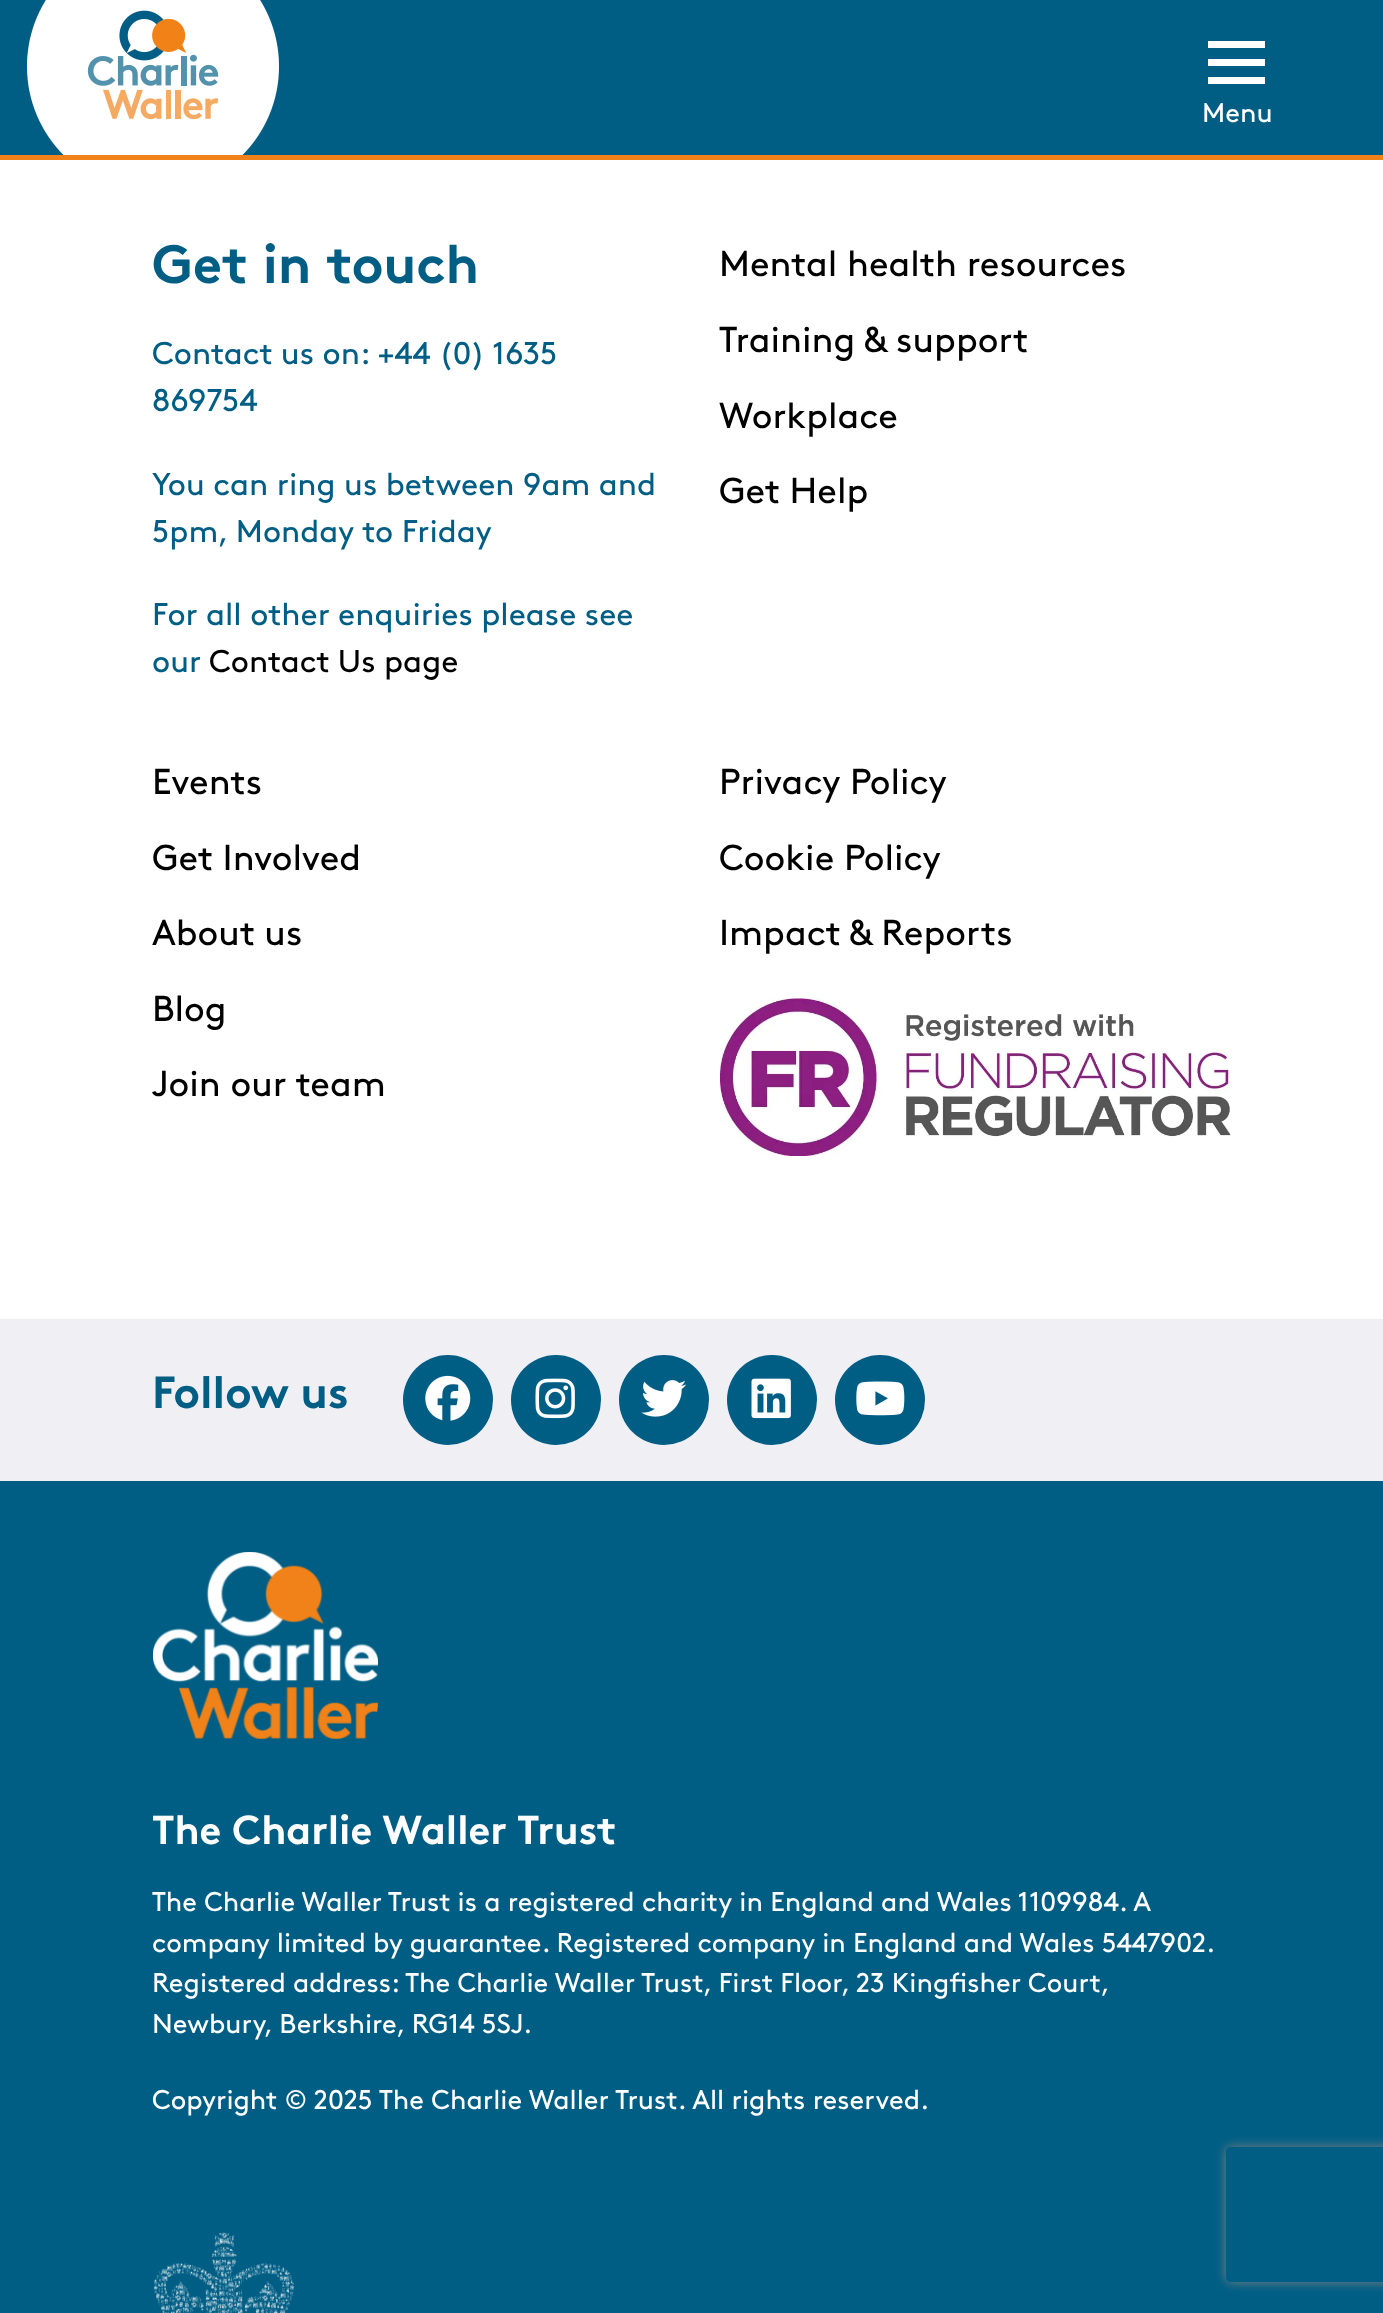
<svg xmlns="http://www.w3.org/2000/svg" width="1383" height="2313">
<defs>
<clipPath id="clip1"><path d="M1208 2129h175v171h-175zm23 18h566c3 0 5 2 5 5v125c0 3-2 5-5 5h-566c-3 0-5-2-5-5v-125c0-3 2-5 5-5z" clip-rule="evenodd"/></clipPath>
</defs>
<rect width="100%" height="100%" fill="#fff"/>
<rect width="1383" height="155" fill="#005e85"/>
<rect y="155" width="1383" height="5" fill="#f08219"/>
<image x="27" y="0" width="252" height="155" href="media/1.png"/>
<rect x="1208" y="41" width="57" height="7" fill="#fff"/>
<rect x="1208" y="59" width="57" height="7" fill="#fff"/>
<rect x="1208" y="77" width="57" height="7" fill="#fff"/>
<text x="1202" y="122" style="font-family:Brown;font-size:27px;fill:#fff">Menu</text>
<text x="152" y="283" style="font-family:Brown;font-size:54px;font-weight:bold;fill:#005e85">Get in touch</text>
<text x="152" y="364" style="font-family:Brown;font-size:31.5px;fill:#005e85">Contact us on: +44 (0) 1635</text>
<text x="152" y="411" style="font-family:Brown;font-size:31.5px;fill:#005e85">869754</text>
<text x="152" y="495" style="font-family:Brown;font-size:31.5px;fill:#005e85">You can ring us between 9am and</text>
<text x="152" y="542" style="font-family:Brown;font-size:31.5px;fill:#005e85">5pm, Monday to Friday</text>
<text x="152" y="625" style="font-family:Brown;font-size:31.5px;fill:#005e85">For all other enquiries please see</text>
<text x="152" y="672" style="font-family:Brown;font-size:31.5px;fill:#005e85">our</text>
<text x="209" y="672" style="font-family:Brown;font-size:31.5px;fill:#000">Contact Us page</text>
<text x="719" y="276" style="font-family:Brown;font-size:36px;fill:#000">Mental health resources</text>
<text x="719" y="352" style="font-family:Brown;font-size:36px;fill:#000">Training &amp; support</text>
<text x="719" y="428" style="font-family:Brown;font-size:36px;fill:#000">Workplace</text>
<text x="719" y="503" style="font-family:Brown;font-size:36px;fill:#000">Get Help</text>
<text x="152" y="794" style="font-family:Brown;font-size:36px;fill:#000">Events</text>
<text x="152" y="870" style="font-family:Brown;font-size:36px;fill:#000">Get Involved</text>
<text x="152" y="945" style="font-family:Brown;font-size:36px;fill:#000">About us</text>
<text x="152" y="1021" style="font-family:Brown;font-size:36px;fill:#000">Blog</text>
<text x="152" y="1096" style="font-family:Brown;font-size:36px;fill:#000">Join our team</text>
<text x="719" y="794" style="font-family:Brown;font-size:36px;fill:#000">Privacy Policy</text>
<text x="719" y="870" style="font-family:Brown;font-size:36px;fill:#000">Cookie Policy</text>
<text x="719" y="945" style="font-family:Brown;font-size:36px;fill:#000">Impact &amp; Reports</text>
<image x="720" y="998" width="511" height="158" href="media/2.png"/>
<rect y="1319" width="1383" height="162" fill="#f0eff4"/>
<text x="152" y="1408" style="font-family:Brown;font-size:45px;font-weight:bold;fill:#005e85">Follow us</text>
<circle cx="448" cy="1400" r="45" fill="#005e85"/>
<image x="425" y="1375" width="46" height="46" href="media/3.png"/>
<circle cx="556" cy="1400" r="45" fill="#005e85"/>
<image x="535" y="1378" width="40" height="41" href="media/4.png"/>
<circle cx="664" cy="1400" r="45" fill="#005e85"/>
<image x="641" y="1380" width="46" height="37" href="media/5.png"/>
<circle cx="772" cy="1400" r="45" fill="#005e85"/>
<image x="751" y="1378" width="40" height="41" href="media/6.png"/>
<circle cx="880" cy="1400" r="45" fill="#005e85"/>
<image x="856" y="1381" width="49" height="35" href="media/7.png"/>
<rect y="1481" width="1383" height="832" fill="#005e85"/>
<image x="153" y="1552" width="225" height="187" href="media/8.png"/>
<text x="152" y="1844" style="font-family:Brown;font-size:40.5px;font-weight:bold;fill:#fff">The Charlie Waller Trust</text>
<text x="152" y="1911" style="font-family:Brown;font-size:27px;fill:#fff">The Charlie Waller Trust is a registered charity in England and Wales 1109984. A</text>
<text x="152" y="1952" word-spacing="-0.1" style="font-family:Brown;font-size:27px;fill:#fff">company limited by guarantee. Registered company in England and Wales 5447902.</text>
<text x="152" y="1992" word-spacing="-0.1" style="font-family:Brown;font-size:27px;fill:#fff">Registered address: The Charlie Waller Trust, First Floor, 23 Kingfisher Court,</text>
<text x="152" y="2033" style="font-family:Brown;font-size:27px;fill:#fff">Newbury, Berkshire, RG14 5SJ.</text>
<text x="152" y="2109" style="font-family:Brown;font-size:27px;fill:#fff">Copyright © 2025 The Charlie Waller Trust. All rights reserved.</text>
<image x="153" y="2232" width="142" height="81" href="media/9.png"/>
<g clip-path="url(#clip1)">
<rect x="1226" y="2147" width="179" height="135" rx="5" fill="#808080" filter="blur(5.5px)"/>
</g>
</svg>
